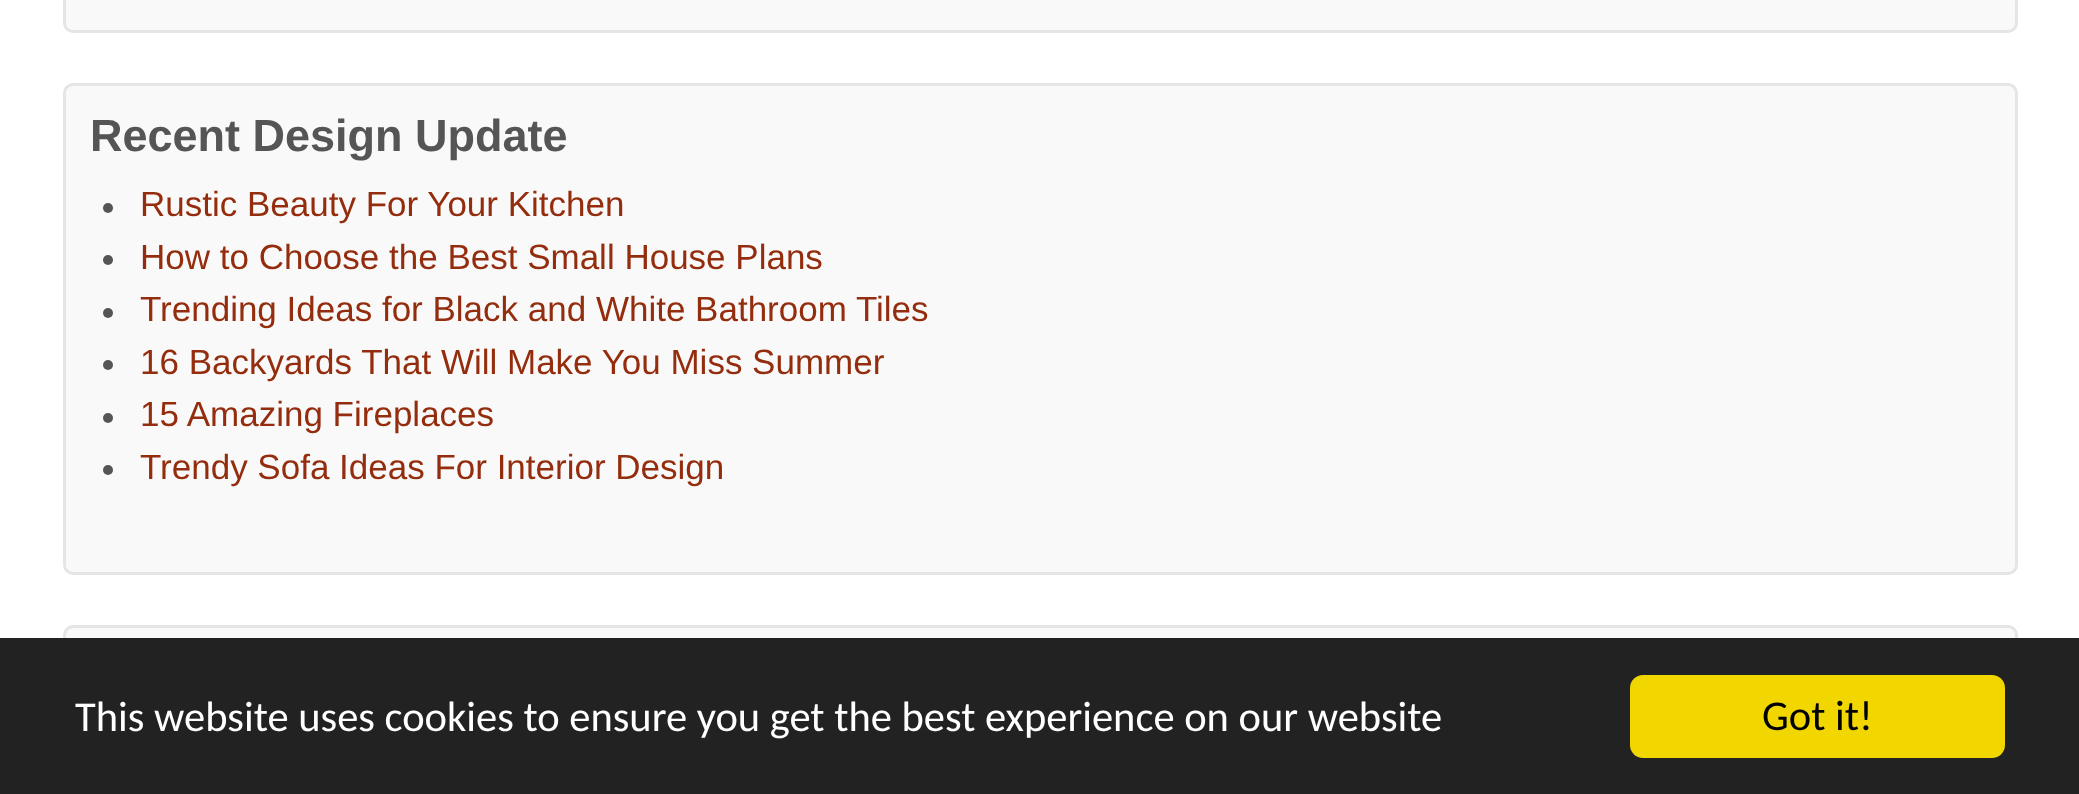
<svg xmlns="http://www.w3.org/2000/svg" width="2079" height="794">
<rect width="100%" height="100%" fill="#fff"/>
<rect x="64.5" y="-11.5" width="1952" height="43" rx="8.5" fill="#f9f9f9" stroke="#e5e5e5" stroke-width="3"/>
<rect x="64.5" y="84.5" width="1952" height="489" rx="8.5" fill="#f9f9f9" stroke="#e5e5e5" stroke-width="3"/>
<text x="90" y="151" style="font-family:Liberation Sans;font-size:45px;font-weight:bold;fill:#555">Recent Design Update</text>
<circle cx="108" cy="208" r="5" fill="#555"/>
<text x="140" y="216" style="font-family:Liberation Sans;font-size:35px;fill:#942d0e">Rustic Beauty For Your Kitchen</text>
<circle cx="108" cy="260" r="5" fill="#555"/>
<text x="140" y="269" style="font-family:Liberation Sans;font-size:35px;fill:#942d0e">How to Choose the Best Small House Plans</text>
<circle cx="108" cy="313" r="5" fill="#555"/>
<text x="140" y="321" style="font-family:Liberation Sans;font-size:35px;fill:#942d0e">Trending Ideas for Black and White Bathroom Tiles</text>
<circle cx="108" cy="365" r="5" fill="#555"/>
<text x="140" y="374" style="font-family:Liberation Sans;font-size:35px;fill:#942d0e">16 Backyards That Will Make You Miss Summer</text>
<circle cx="108" cy="418" r="5" fill="#555"/>
<text x="140" y="426" style="font-family:Liberation Sans;font-size:35px;fill:#942d0e">15 Amazing Fireplaces</text>
<circle cx="108" cy="470" r="5" fill="#555"/>
<text x="140" y="479" style="font-family:Liberation Sans;font-size:35px;fill:#942d0e">Trendy Sofa Ideas For Interior Design</text>
<rect x="64.5" y="626.5" width="1952" height="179" rx="8.5" fill="#f9f9f9" stroke="#e5e5e5" stroke-width="3"/>
<rect y="638" width="2079" height="156" fill="#222"/>
<text x="75" y="731" style="font-family:Carlito;font-size:42.5px;fill:#fff">This website uses cookies to ensure you get the best experience on our website</text>
<rect x="1630" y="675" width="375" height="83" rx="13" fill="#f1d600"/>
<text x="1762" y="730" style="font-family:Carlito;font-size:42.5px;fill:#000">Got it!</text>
</svg>
